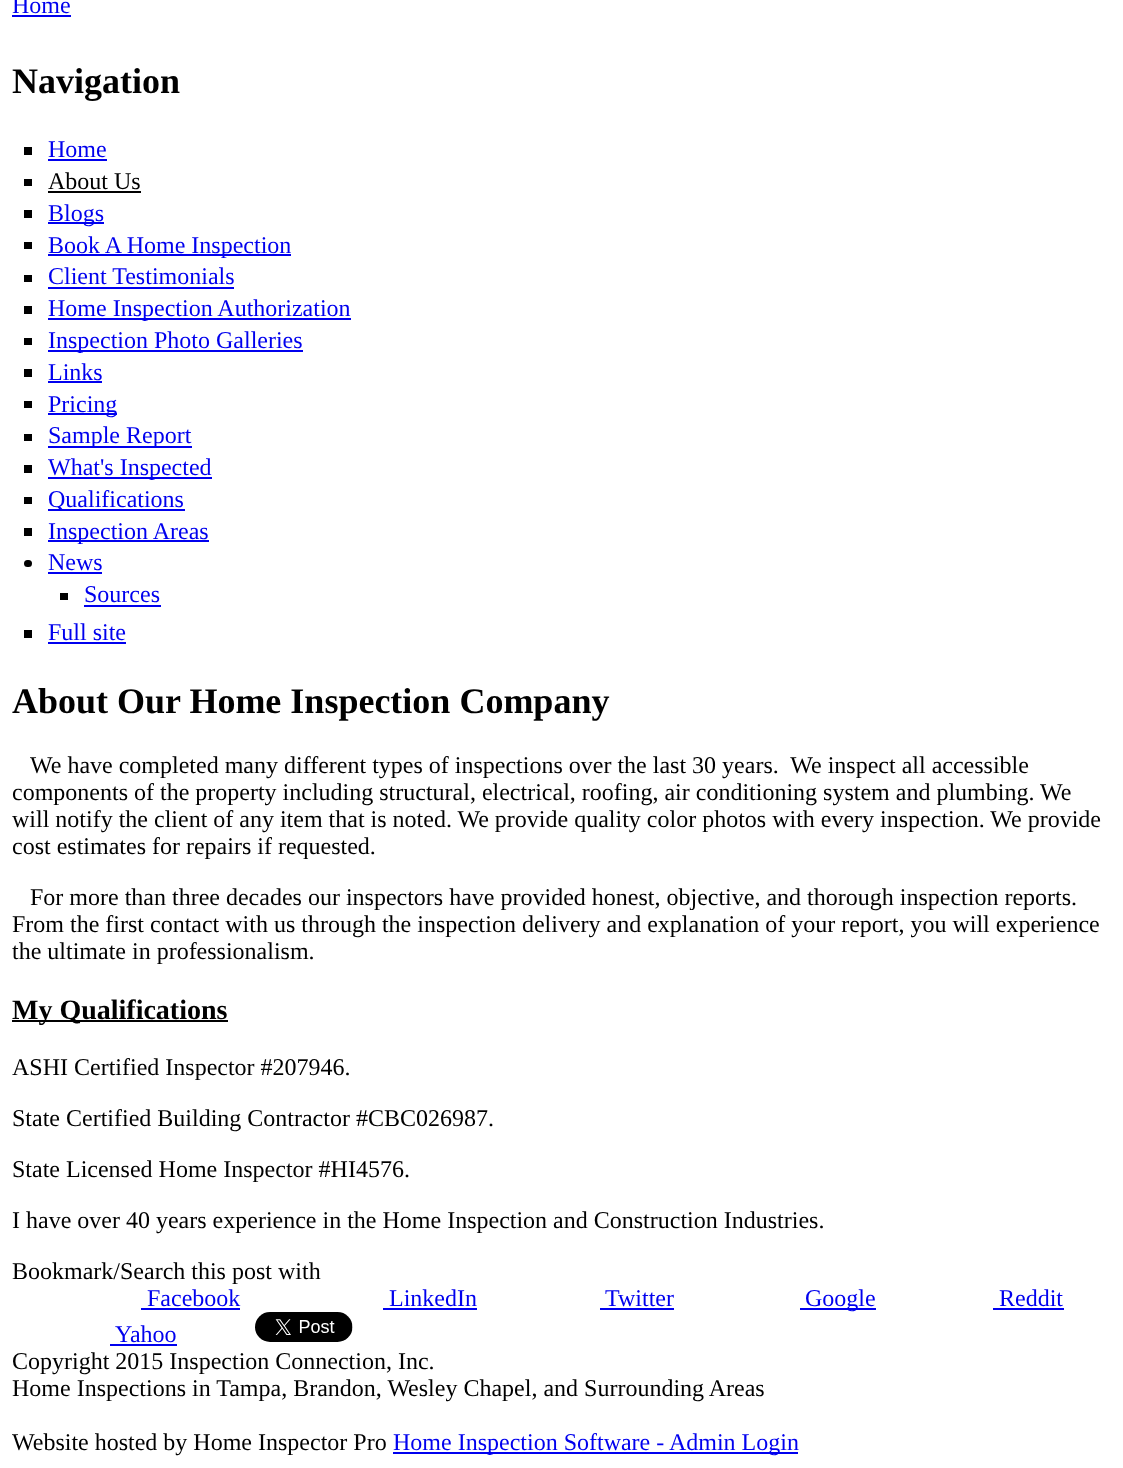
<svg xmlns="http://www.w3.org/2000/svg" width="1123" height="1468">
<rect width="100%" height="100%" fill="#fff"/>
<text x="12" y="13" style="font-family:Liberation Serif;font-size:24px;fill:#00e">Home</text>
<rect x="12" y="15" width="59" height="2" fill="#00e"/>
<text x="12" y="93" style="font-family:Liberation Serif;font-size:36px;font-weight:bold;fill:#000">Navigation</text>
<rect x="24" y="147" width="8" height="8" fill="#000"/>
<text x="48" y="157" style="font-family:Liberation Serif;font-size:24px;fill:#00e">Home</text>
<rect x="48" y="159" width="59" height="2" fill="#00e"/>
<rect x="24" y="179" width="8" height="7" fill="#000"/>
<text x="48" y="189" style="font-family:Liberation Serif;font-size:24px;fill:#000">About Us</text>
<rect x="48" y="191" width="93" height="2" fill="#000"/>
<rect x="24" y="210" width="8" height="8" fill="#000"/>
<rect x="48" y="222" width="56" height="2" fill="#00e"/>
<text x="48" y="221" style="font-family:Liberation Serif;font-size:24px;fill:#00e">Blogs</text>
<rect x="24" y="242" width="8" height="7" fill="#000"/>
<rect x="48" y="254" width="243" height="2" fill="#00e"/>
<text x="48" y="253" style="font-family:Liberation Serif;font-size:24px;fill:#00e">Book A Home Inspection</text>
<rect x="24" y="275" width="8" height="7" fill="#000"/>
<text x="48" y="284" style="font-family:Liberation Serif;font-size:24px;fill:#00e">Client Testimonials</text>
<rect x="48" y="287" width="186" height="2" fill="#00e"/>
<rect x="24" y="306" width="8" height="8" fill="#000"/>
<rect x="48" y="318" width="303" height="2" fill="#00e"/>
<text x="48" y="316" style="font-family:Liberation Serif;font-size:24px;fill:#00e">Home Inspection Authorization</text>
<rect x="24" y="338" width="8" height="7" fill="#000"/>
<rect x="48" y="350" width="255" height="2" fill="#00e"/>
<text x="48" y="348" style="font-family:Liberation Serif;font-size:24px;fill:#00e">Inspection Photo Galleries</text>
<rect x="24" y="369" width="8" height="8" fill="#000"/>
<text x="48" y="380" style="font-family:Liberation Serif;font-size:24px;fill:#00e">Links</text>
<rect x="48" y="381" width="54" height="2" fill="#00e"/>
<rect x="24" y="401" width="8" height="7" fill="#000"/>
<rect x="48" y="413" width="69" height="2" fill="#00e"/>
<text x="48" y="412" style="font-family:Liberation Serif;font-size:24px;fill:#00e">Pricing</text>
<rect x="24" y="434" width="8" height="7" fill="#000"/>
<rect x="48" y="446" width="144" height="2" fill="#00e"/>
<text x="48" y="443" style="font-family:Liberation Serif;font-size:24px;fill:#00e">Sample Report</text>
<rect x="24" y="465" width="8" height="8" fill="#000"/>
<rect x="48" y="477" width="164" height="2" fill="#00e"/>
<text x="48" y="475" style="font-family:Liberation Serif;font-size:24px;fill:#00e">What's Inspected</text>
<rect x="24" y="497" width="8" height="7" fill="#000"/>
<rect x="48" y="509" width="137" height="2" fill="#00e"/>
<text x="48" y="507" style="font-family:Liberation Serif;font-size:24px;fill:#00e">Qualifications</text>
<rect x="24" y="528" width="8" height="8" fill="#000"/>
<rect x="48" y="540" width="161" height="2" fill="#00e"/>
<text x="48" y="539" style="font-family:Liberation Serif;font-size:24px;fill:#00e">Inspection Areas</text>
<rect x="24" y="560" width="8" height="7" rx="3.5" fill="#000"/>
<text x="48" y="570" style="font-family:Liberation Serif;font-size:24px;fill:#00e">News</text>
<rect x="48" y="572" width="54" height="2" fill="#00e"/>
<rect x="60" y="593" width="8" height="7" fill="#000"/>
<text x="84" y="602" style="font-family:Liberation Serif;font-size:24px;fill:#00e">Sources</text>
<rect x="84" y="605" width="77" height="2" fill="#00e"/>
<rect x="24" y="630" width="8" height="8" fill="#000"/>
<text x="48" y="640" style="font-family:Liberation Serif;font-size:24px;fill:#00e">Full site</text>
<rect x="48" y="642" width="78" height="2" fill="#00e"/>
<text x="12" y="713" style="font-family:Liberation Serif;font-size:36px;font-weight:bold;fill:#000">About Our Home Inspection Company</text>
<text x="30" y="773" style="font-family:Liberation Serif;font-size:24px;fill:#000" xml:space="preserve">We have completed many different types of inspections over the last 30 years.  We inspect all accessible</text>
<text x="12" y="800" style="font-family:Liberation Serif;font-size:24px;fill:#000">components of the property including structural, electrical, roofing, air conditioning system and plumbing. We</text>
<text x="12" y="827" style="font-family:Liberation Serif;font-size:24px;fill:#000">will notify the client of any item that is noted. We provide quality color photos with every inspection. We provide</text>
<text x="12" y="854" style="font-family:Liberation Serif;font-size:24px;fill:#000">cost estimates for repairs if requested.</text>
<text x="30" y="905" style="font-family:Liberation Serif;font-size:24px;fill:#000">For more than three decades our inspectors have provided honest, objective, and thorough inspection reports.</text>
<text x="12" y="932" style="font-family:Liberation Serif;font-size:24px;fill:#000">From the first contact with us through the inspection delivery and explanation of your report, you will experience</text>
<text x="12" y="959" style="font-family:Liberation Serif;font-size:24px;fill:#000">the ultimate in professionalism.</text>
<rect x="12" y="1020" width="216" height="2" fill="#000"/>
<text x="12" y="1019" style="font-family:Liberation Serif;font-size:28px;font-weight:bold;fill:#000">My Qualifications</text>
<text x="12" y="1075" style="font-family:Liberation Serif;font-size:24px;fill:#000">ASHI Certified Inspector #207946.</text>
<text x="12" y="1126" style="font-family:Liberation Serif;font-size:24px;fill:#000">State Certified Building Contractor #CBC026987.</text>
<text x="12" y="1177" style="font-family:Liberation Serif;font-size:24px;fill:#000">State Licensed Home Inspector #HI4576.</text>
<text x="12" y="1228" style="font-family:Liberation Serif;font-size:24px;fill:#000">I have over 40 years experience in the Home Inspection and Construction Industries.</text>
<text x="12" y="1279" style="font-family:Liberation Serif;font-size:24px;fill:#000">Bookmark/Search this post with</text>
<text x="147" y="1306" style="font-family:Liberation Serif;font-size:24px;fill:#00e">Facebook</text>
<rect x="141" y="1308" width="99" height="2" fill="#00e"/>
<text x="389" y="1306" style="font-family:Liberation Serif;font-size:24px;fill:#00e">LinkedIn</text>
<rect x="383" y="1308" width="94" height="2" fill="#00e"/>
<text x="605" y="1306" style="font-family:Liberation Serif;font-size:24px;fill:#00e">Twitter</text>
<rect x="600" y="1308" width="74" height="2" fill="#00e"/>
<rect x="800" y="1308" width="76" height="2" fill="#00e"/>
<text x="805" y="1306" style="font-family:Liberation Serif;font-size:24px;fill:#00e">Google</text>
<text x="999" y="1306" style="font-family:Liberation Serif;font-size:24px;fill:#00e">Reddit</text>
<rect x="993" y="1308" width="71" height="2" fill="#00e"/>
<text x="115" y="1342" style="font-family:Liberation Serif;font-size:24px;fill:#00e">Yahoo</text>
<rect x="110" y="1344" width="67" height="2" fill="#00e"/>
<image x="255" y="1312" width="98" height="30" href="media/1.png"/>
<text x="12" y="1369" style="font-family:Liberation Serif;font-size:24px;fill:#000">Copyright 2015 Inspection Connection, Inc.</text>
<text x="12" y="1396" style="font-family:Liberation Serif;font-size:24px;fill:#000">Home Inspections in Tampa, Brandon, Wesley Chapel, and Surrounding Areas</text>
<text x="12" y="1450" style="font-family:Liberation Serif;font-size:24px;fill:#000">Website hosted by Home Inspector Pro</text>
<rect x="393" y="1452" width="405" height="2" fill="#00e"/>
<text x="393" y="1450" style="font-family:Liberation Serif;font-size:24px;fill:#00e">Home Inspection Software - Admin Login</text>
</svg>
